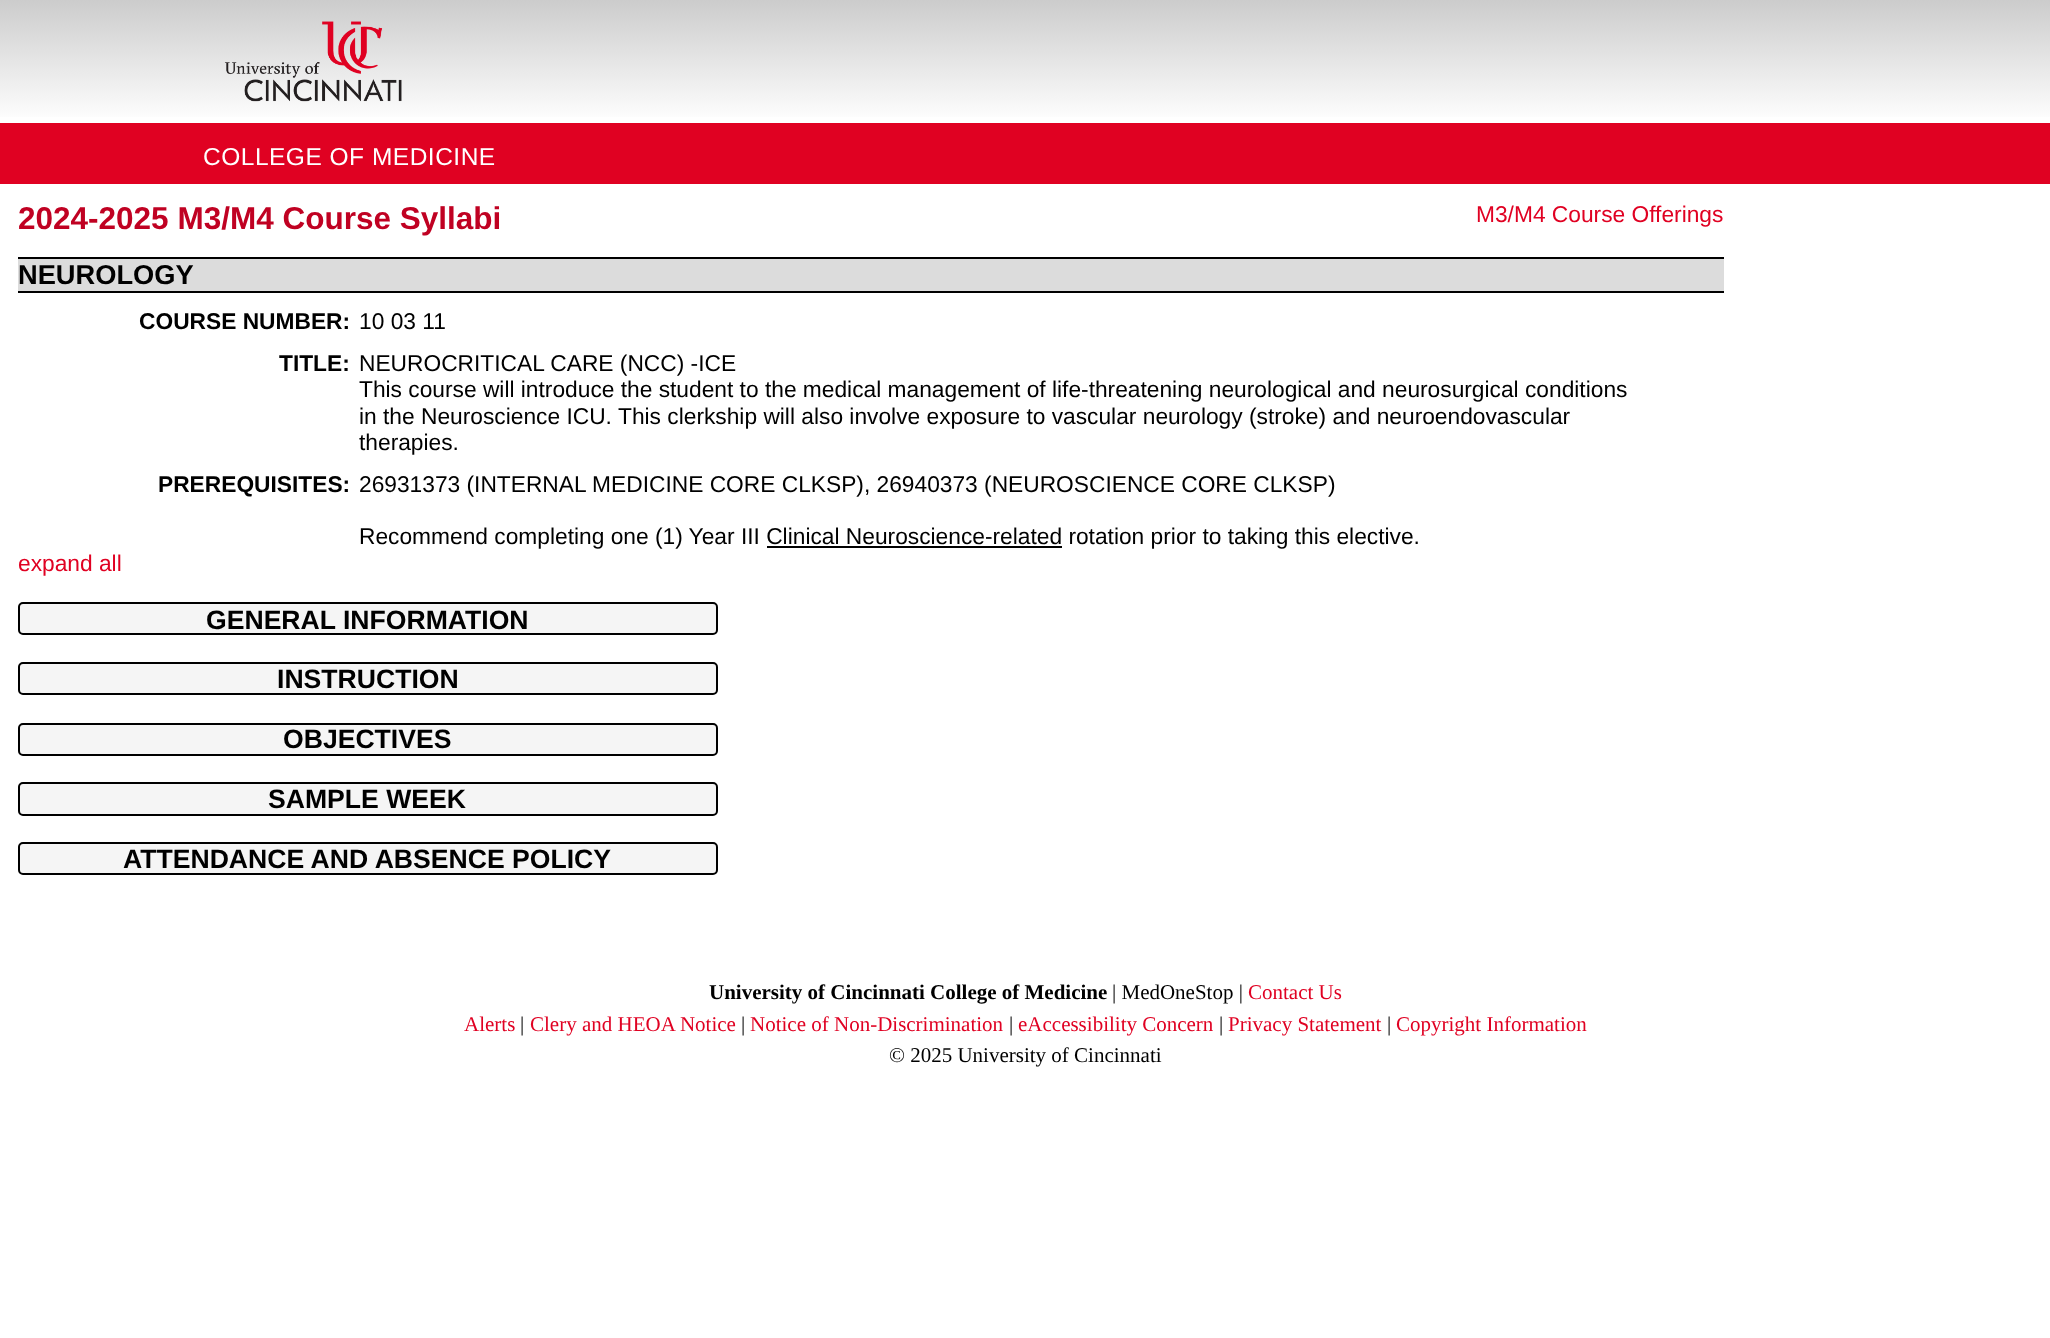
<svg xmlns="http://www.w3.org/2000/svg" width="2050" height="1338">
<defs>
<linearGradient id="g1" gradientUnits="userSpaceOnUse" x1="1026" y1="0" x2="1026" y2="123"><stop offset="0" stop-color="#ccc"/><stop offset="1" stop-color="#fff"/></linearGradient>
</defs>
<rect width="100%" height="100%" fill="#fff"/>
<rect width="2050" height="117" fill="url(#g1)"/>
<image x="224" y="21" width="178" height="81" href="media/1.png"/>
<rect y="123" width="2050" height="61" fill="#e00122"/>
<text x="203" y="165" style="font-family:Liberation Sans;font-size:24.5px;letter-spacing:0.5px;fill:#fff">COLLEGE OF MEDICINE</text>
<text x="18" y="229" style="font-family:Liberation Sans;font-size:31.5px;font-weight:bold;fill:#c00122">2024-2025 M3/M4 Course Syllabi</text>
<text x="1476" y="222" style="font-family:Liberation Sans;font-size:22.75px;fill:#e00122">M3/M4 Course Offerings</text>
<rect x="18" y="259" width="1706" height="32" fill="#dcdcdc"/>
<rect x="18" y="257" width="1706" height="2" fill="#000"/>
<rect x="18" y="291" width="1706" height="2" fill="#000"/>
<text x="18" y="284" style="font-family:Liberation Sans;font-size:27.25px;font-weight:bold;fill:#000">NEUROLOGY</text>
<text x="139" y="329" style="font-family:Liberation Sans;font-size:22.75px;font-weight:bold;fill:#000">COURSE NUMBER:</text>
<text x="359" y="329" style="font-family:Liberation Sans;font-size:22.75px;fill:#000">10 03 11</text>
<text x="279" y="371" style="font-family:Liberation Sans;font-size:22.75px;font-weight:bold;fill:#000">TITLE:</text>
<text x="359" y="371" style="font-family:Liberation Sans;font-size:22.75px;fill:#000">NEUROCRITICAL CARE (NCC) -ICE</text>
<text x="359" y="397" style="font-family:Liberation Sans;font-size:22.75px;fill:#000">This course will introduce the student to the medical management of life-threatening neurological and neurosurgical conditions</text>
<text x="359" y="424" style="font-family:Liberation Sans;font-size:22.75px;fill:#000">in the Neuroscience ICU.</text>
<text x="618" y="424" style="font-family:Liberation Sans;font-size:22.75px;fill:#000">This clerkship will also involve exposure to vascular neurology (stroke) and neuroendovascular</text>
<text x="359" y="450" style="font-family:Liberation Sans;font-size:22.75px;fill:#000">therapies.</text>
<text x="158" y="492" style="font-family:Liberation Sans;font-size:22.75px;font-weight:bold;fill:#000">PREREQUISITES:</text>
<text x="359" y="492" style="font-family:Liberation Sans;font-size:22.75px;fill:#000">26931373 (INTERNAL MEDICINE CORE CLKSP), 26940373 (NEUROSCIENCE CORE CLKSP)</text>
<text x="359" y="544" style="font-family:Liberation Sans;font-size:22.75px;fill:#000">Recommend completing one (1) Year III Clinical Neuroscience-related rotation prior to taking this elective.</text>
<rect x="767" y="546" width="295" height="2" fill="#000"/>
<text x="18" y="571" style="font-family:Liberation Sans;font-size:22.75px;fill:#e00122">expand all</text>
<rect x="19" y="603" width="698" height="31" rx="4" fill="#f5f5f5" stroke="#000" stroke-width="2"/>
<text x="206" y="629" style="font-family:Liberation Sans;font-size:26.6px;font-weight:bold;fill:#000">GENERAL INFORMATION</text>
<rect x="19" y="663" width="698" height="31" rx="4" fill="#f5f5f5" stroke="#000" stroke-width="2"/>
<text x="277" y="688" style="font-family:Liberation Sans;font-size:26.6px;font-weight:bold;fill:#000">INSTRUCTION</text>
<rect x="19" y="724" width="698" height="31" rx="4" fill="#f5f5f5" stroke="#000" stroke-width="2"/>
<text x="283" y="748" style="font-family:Liberation Sans;font-size:26.6px;font-weight:bold;fill:#000">OBJECTIVES</text>
<rect x="19" y="783" width="698" height="32" rx="4" fill="#f5f5f5" stroke="#000" stroke-width="2"/>
<text x="268" y="808" style="font-family:Liberation Sans;font-size:26.6px;font-weight:bold;fill:#000">SAMPLE WEEK</text>
<rect x="19" y="843" width="698" height="31" rx="4" fill="#f5f5f5" stroke="#000" stroke-width="2"/>
<text x="123" y="868" style="font-family:Liberation Sans;font-size:26.6px;font-weight:bold;fill:#000">ATTENDANCE AND ABSENCE POLICY</text>
<text x="709" y="999" style="font-family:Liberation Serif;font-size:21px;font-weight:bold;fill:#000">University of Cincinnati College of Medicine</text>
<text x="1112" y="999" style="font-family:Liberation Serif;font-size:21px;fill:#000">| MedOneStop |</text>
<text x="1248" y="999" style="font-family:Liberation Serif;font-size:21px;fill:#e00122">Contact Us</text>
<text x="464" y="1031" style="font-family:Liberation Serif;font-size:21px;fill:#e00122">Alerts</text>
<text x="520" y="1031" style="font-family:Liberation Serif;font-size:21px;fill:#000">|</text>
<text x="530" y="1031" style="font-family:Liberation Serif;font-size:21px;fill:#e00122">Clery and HEOA Notice</text>
<text x="741" y="1031" style="font-family:Liberation Serif;font-size:21px;fill:#000">|</text>
<text x="750" y="1031" style="font-family:Liberation Serif;font-size:21px;fill:#e00122">Notice of Non-Discrimination</text>
<text x="1009" y="1031" style="font-family:Liberation Serif;font-size:21px;fill:#000">|</text>
<text x="1018" y="1031" style="font-family:Liberation Serif;font-size:21px;fill:#e00122">eAccessibility Concern</text>
<text x="1219" y="1031" style="font-family:Liberation Serif;font-size:21px;fill:#000">|</text>
<text x="1228" y="1031" style="font-family:Liberation Serif;font-size:21px;fill:#e00122">Privacy Statement</text>
<text x="1387" y="1031" style="font-family:Liberation Serif;font-size:21px;fill:#000">|</text>
<text x="1396" y="1031" style="font-family:Liberation Serif;font-size:21px;fill:#e00122">Copyright Information</text>
<text x="889" y="1062" style="font-family:Liberation Serif;font-size:21px;fill:#000">© 2025 University of Cincinnati</text>
</svg>
